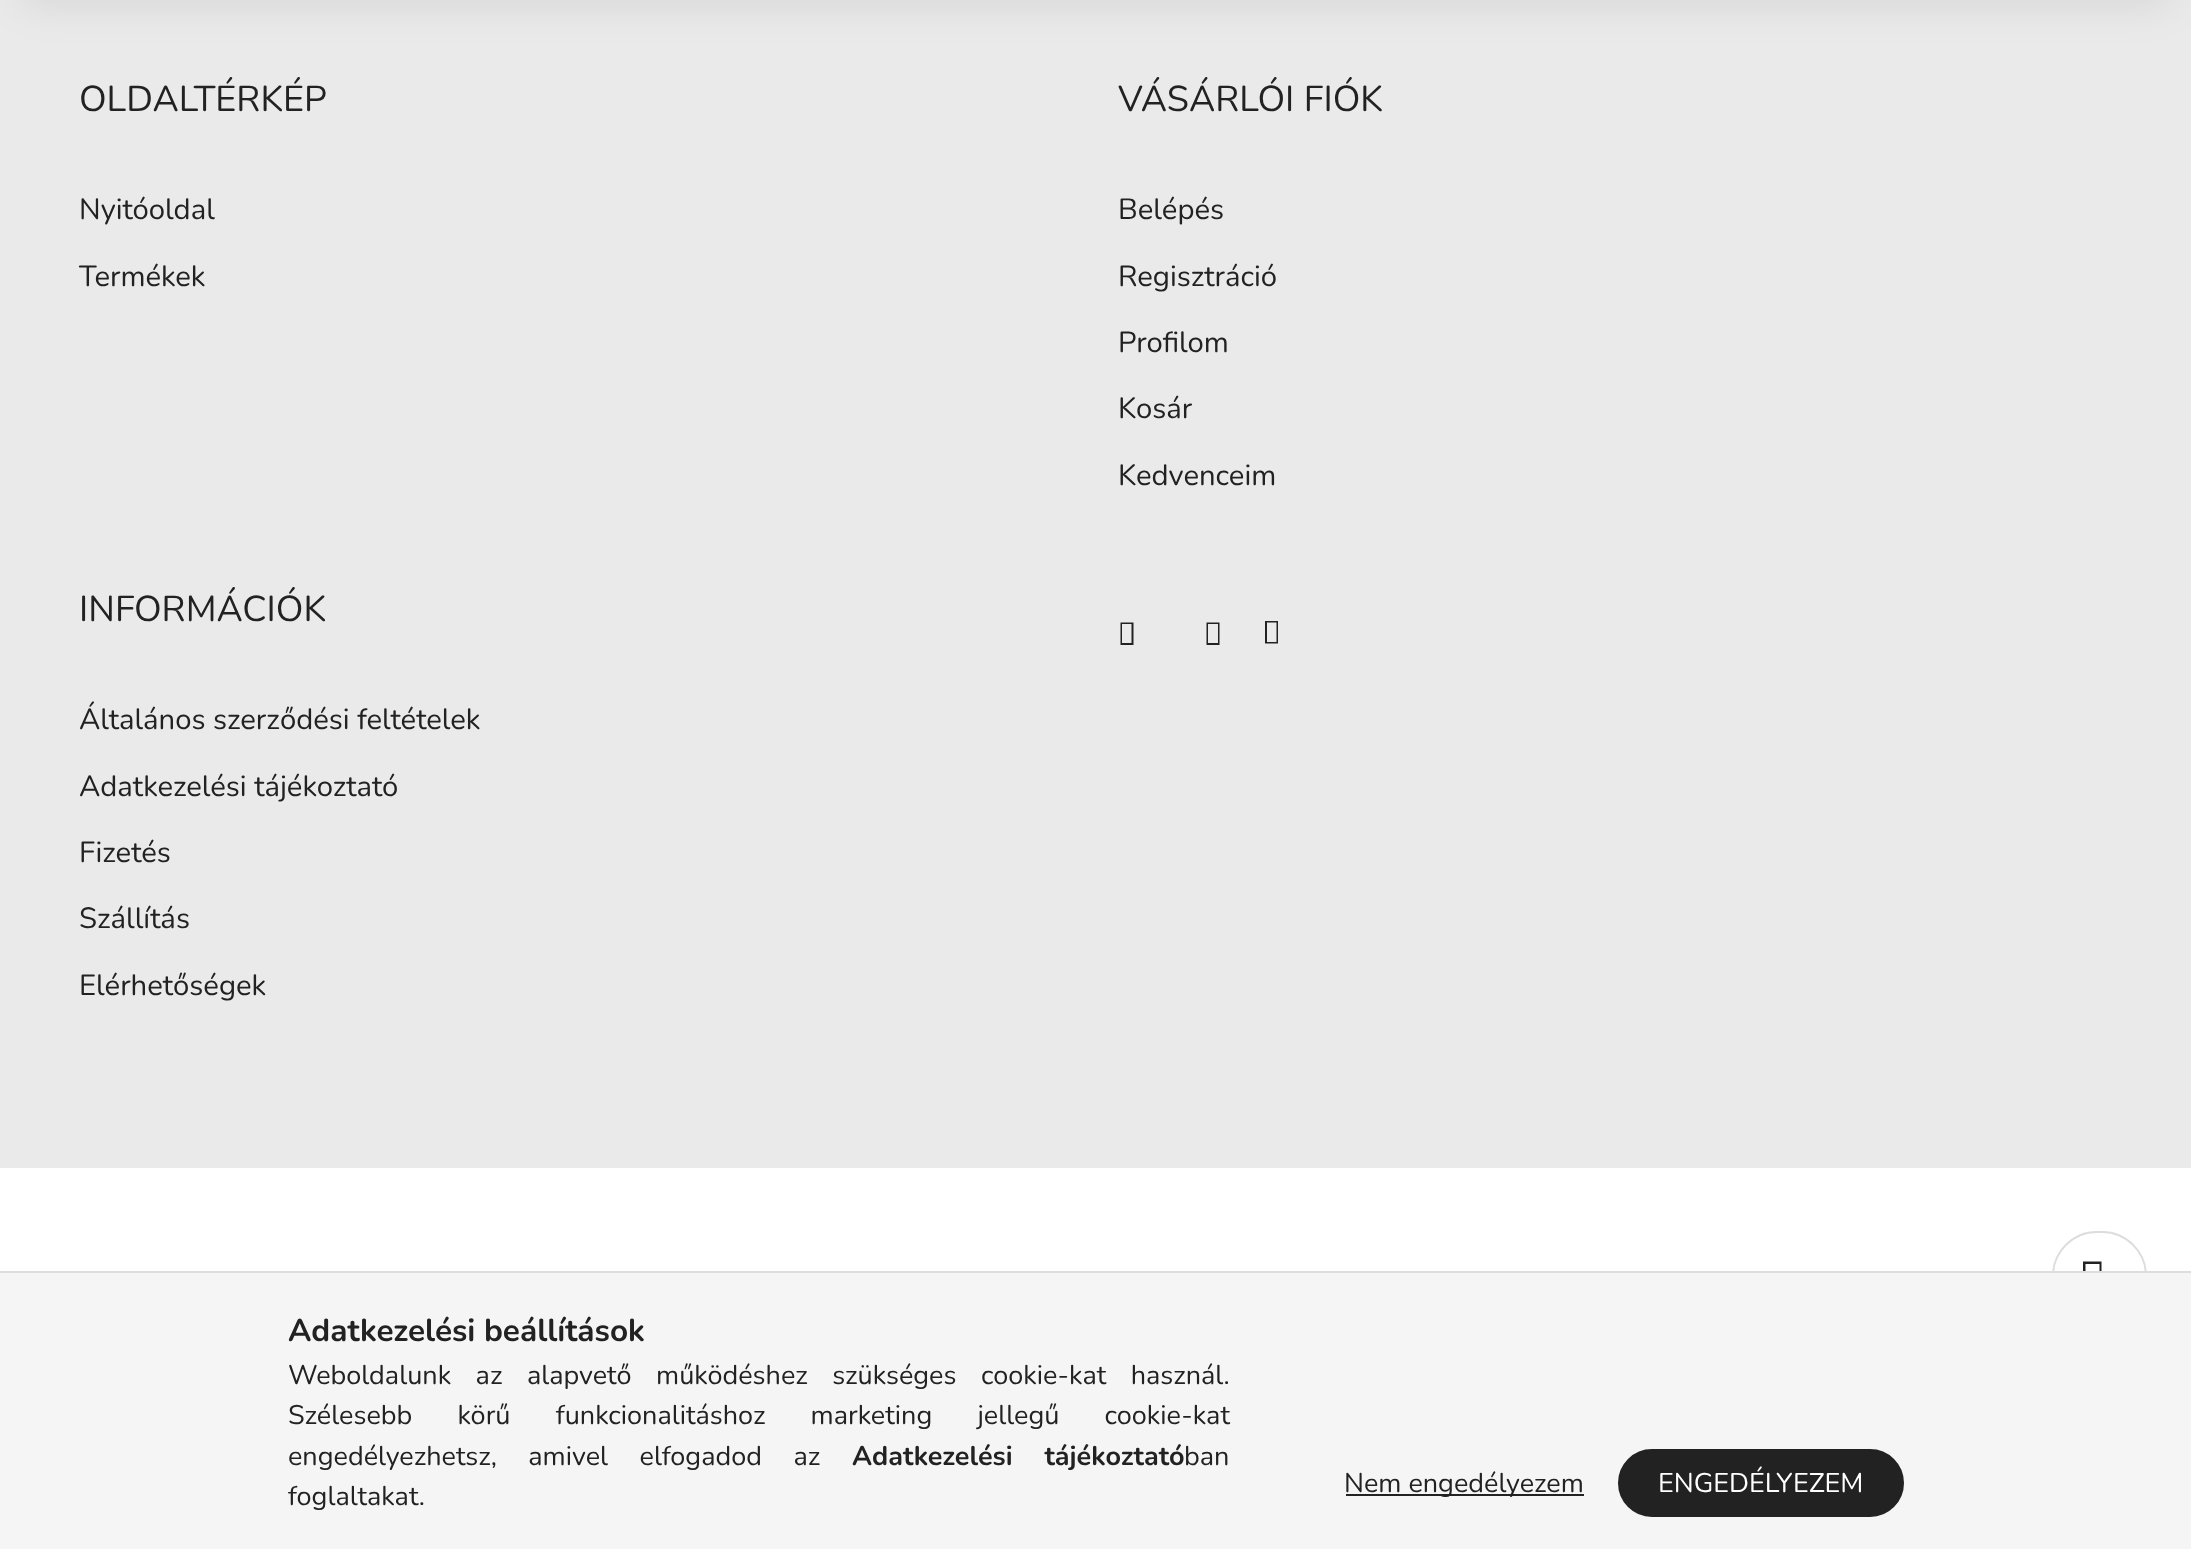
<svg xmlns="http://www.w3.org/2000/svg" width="2191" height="1549">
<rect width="100%" height="100%" fill="#fff"/>
<rect width="2191" height="1168" fill="#eaeaea"/>
<rect x="23" y="-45" width="2146" height="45" fill="#0000001a" filter="blur(22.5px)"/>
<text x="79" y="111" style="font-family:Nunito;font-size:36px;fill:#222">OLDALTÉRKÉP</text>
<text x="79" y="219" style="font-family:Nunito;font-size:29.25px;fill:#222">Nyitóoldal</text>
<text x="79" y="286" style="font-family:Nunito;font-size:29.25px;fill:#222">Termékek</text>
<text x="1118" y="111" style="font-family:Nunito;font-size:36px;fill:#222">VÁSÁRLÓI FIÓK</text>
<text x="1118" y="219" style="font-family:Nunito;font-size:29.25px;fill:#222">Belépés</text>
<text x="1118" y="286" style="font-family:Nunito;font-size:29.25px;fill:#222">Regisztráció</text>
<text x="1118" y="352" style="font-family:Nunito;font-size:29.25px;fill:#222">Profilom</text>
<text x="1118" y="418" style="font-family:Nunito;font-size:29.25px;fill:#222">Kosár</text>
<text x="1118" y="485" style="font-family:Nunito;font-size:29.25px;fill:#222">Kedvenceim</text>
<text x="79" y="621" style="font-family:Nunito;font-size:36px;fill:#222">INFORMÁCIÓK</text>
<text x="79" y="729" style="font-family:Nunito;font-size:29.25px;fill:#222">Általános szerződési feltételek</text>
<text x="79" y="796" style="font-family:Nunito;font-size:29.25px;fill:#222">Adatkezelési tájékoztató</text>
<text x="79" y="862" style="font-family:Nunito;font-size:29.25px;fill:#222">Fizetés</text>
<text x="79" y="928" style="font-family:Nunito;font-size:29.25px;fill:#222">Szállítás</text>
<text x="79" y="995" style="font-family:Nunito;font-size:29.25px;fill:#222">Elérhetőségek</text>
<path d="M1120.5 645v-22.5h13v22.5zm1.5-2h9.5v-19h-9.5z" fill="#222"/>
<path d="M1206.5 645v-22.5h13v22.5zm1.5-2h10v-19h-10z" fill="#222"/>
<path d="M1265 643.5v-22.5h13v22.5zm2-1.5h9.5v-19.5h-9.5z" fill="#222"/>
<rect x="2053" y="1232" width="93" height="92" rx="44" fill="none" stroke="#ddd" stroke-width="2"/>
<path d="M2083 1294v-32.5h18.5v32.5zm2.5-2.5h14v-27.5h-14z" fill="#222"/>
<rect y="1273" width="2191" height="276" fill="#f5f5f5"/>
<rect y="1271" width="2191" height="2" fill="#ddd"/>
<text x="288" y="1341" style="font-family:Nunito;font-size:31.5px;font-weight:bold;fill:#222">Adatkezelési beállítások</text>
<text x="288" y="1384" word-spacing="17.5" style="font-family:Nunito;font-size:27px;fill:#222">Weboldalunk az alapvető működéshez szükséges cookie-kat használ.</text>
<text x="288" y="1424" word-spacing="38.25" style="font-family:Nunito;font-size:27px;fill:#222">Szélesebb körű funkcionalitáshoz marketing jellegű cookie-kat</text>
<text x="288" y="1465" word-spacing="24.5" style="font-family:Nunito;font-size:27px;fill:#222">engedélyezhetsz, amivel elfogadod az</text>
<text x="852" y="1465" word-spacing="24.5" style="font-family:Nunito;font-size:27px;font-weight:bold;fill:#222">Adatkezelési tájékoztató</text>
<text x="1184" y="1465" style="font-family:Nunito;font-size:27px;fill:#222">ban</text>
<text x="288" y="1505" style="font-family:Nunito;font-size:27px;fill:#222">foglaltakat.</text>
<rect x="1346" y="1494" width="238" height="2" fill="#222"/>
<text x="1344" y="1492" style="font-family:Nunito;font-size:27px;fill:#222">Nem engedélyezem</text>
<rect x="1619" y="1450" width="284" height="66" rx="33" fill="#222" stroke="#222" stroke-width="2"/>
<text x="1658" y="1492" style="font-family:Nunito;font-size:27px;fill:#fff">ENGEDÉLYEZEM</text>
</svg>
